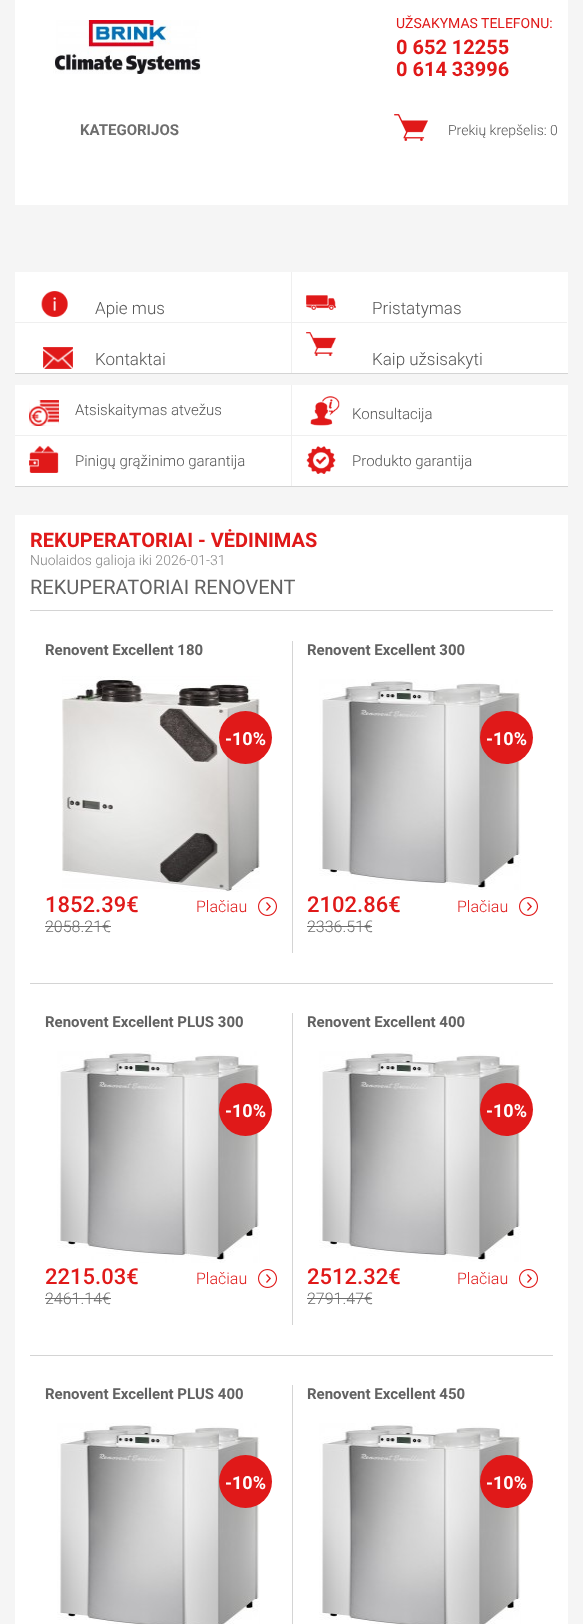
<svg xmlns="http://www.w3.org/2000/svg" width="583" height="1624">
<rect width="100%" height="100%" fill="#f5f5f5"/>
<rect x="15" width="553" height="205" fill="#fff"/>
<image x="53" y="20" width="148" height="54" href="media/1.png"/>
<text x="396" y="28" style="font-family:Roboto;font-size:14px;fill:#e01919">UŽSAKYMAS TELEFONU:</text>
<text x="396" y="54" style="font-family:Roboto;font-size:20px;font-weight:bold;fill:#e01919">0 652 12255</text>
<text x="396" y="76" style="font-family:Roboto;font-size:20px;font-weight:bold;fill:#e01919">0 614 33996</text>
<rect x="15" y="272" width="553" height="101" fill="#fff"/>
<rect x="15" y="373" width="553" height="1" fill="#d4d4d4"/>
<rect x="291" y="272" width="1" height="101" fill="#efefef"/>
<rect x="15" y="322" width="552" height="1" fill="#efefef"/>
<rect x="41" y="291" width="27" height="26" fill="#e01919"/>
<image x="40" y="291" width="30" height="26" href="media/2.png"/>
<text x="95" y="314" style="font-family:'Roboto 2';font-size:17px;font-weight:300;fill:#545454">Apie mus</text>
<rect x="306" y="295" width="30" height="15" fill="#e01919"/>
<image x="306" y="295" width="30" height="15" href="media/3.png"/>
<text x="372" y="314" style="font-family:'Roboto 2';font-size:17px;font-weight:300;fill:#545454">Pristatymas</text>
<rect x="43" y="347" width="30" height="22" fill="#e01919"/>
<image x="43" y="347" width="30" height="22" href="media/4.png"/>
<text x="95" y="365" style="font-family:'Roboto 2';font-size:17px;font-weight:300;fill:#545454">Kontaktai</text>
<rect x="306" y="332" width="30" height="24" fill="#e01919"/>
<image x="306" y="332" width="30" height="24" href="media/5.png"/>
<text x="372" y="365" style="font-family:'Roboto 2';font-size:17px;font-weight:300;fill:#545454">Kaip užsisakyti</text>
<rect x="15" y="385" width="553" height="101" fill="#fff"/>
<rect x="15" y="486" width="553" height="1" fill="#d4d4d4"/>
<rect x="291" y="385" width="1" height="101" fill="#efefef"/>
<rect x="15" y="435" width="552" height="1" fill="#efefef"/>
<rect x="29" y="400" width="30" height="26" fill="#e01919"/>
<image x="29" y="400" width="30" height="26" href="media/6.png"/>
<text x="75" y="415" style="font-family:'Roboto 2';font-size:15px;font-weight:300;fill:#545454">Atsiskaitymas atvežus</text>
<rect x="310" y="396" width="30" height="30" fill="#e01919"/>
<image x="310" y="395" width="30" height="31" href="media/7.png"/>
<text x="352" y="419" style="font-family:'Roboto 2';font-size:15px;font-weight:300;fill:#545454">Konsultacija</text>
<rect x="29" y="445" width="30" height="28" fill="#e01919"/>
<image x="29" y="445" width="30" height="28" href="media/8.png"/>
<text x="75" y="466" style="font-family:'Roboto 2';font-size:15px;font-weight:300;fill:#545454">Pinigų grąžinimo garantija</text>
<rect x="306" y="446" width="30" height="28" fill="#e01919"/>
<image x="306" y="445" width="30" height="29" href="media/9.png"/>
<text x="352" y="466" style="font-family:'Roboto 2';font-size:15px;font-weight:300;fill:#545454">Produkto garantija</text>
<text x="80" y="135" style="font-family:'Roboto 2';font-size:15px;font-weight:bold;fill:#6d6d6d">KATEGORIJOS</text>
<rect x="394" y="114" width="34" height="27" fill="#e01919"/>
<image x="394" y="114" width="34" height="27" href="media/10.png"/>
<text x="448" y="135" style="font-family:'Roboto 2';font-size:14px;font-weight:300;fill:#545454">Prekių krepšelis: 0</text>
<rect x="15" y="515" width="553" height="1109" fill="#fff"/>
<text x="30" y="547" style="font-family:Roboto;font-size:20px;font-weight:bold;fill:#e01919">REKUPERATORIAI - VĖDINIMAS</text>
<text x="30" y="565" style="font-family:Roboto;font-size:14px;font-weight:300;fill:#868686">Nuolaidos galioja iki 2026-01-31</text>
<text x="30" y="594" style="font-family:Roboto;font-size:20px;fill:#626262">REKUPERATORIAI RENOVENT</text>
<rect x="30" y="610" width="523" height="1" fill="#d4d4d4"/>
<rect x="30" y="983" width="523" height="1" fill="#d4d4d4"/>
<rect x="292" y="641" width="1" height="312" fill="#d4d4d4"/>
<text x="45" y="655" style="font-family:Roboto;font-size:15px;font-weight:bold;fill:#626262">Renovent Excellent 180</text>
<image x="62" y="676" width="198" height="216" href="media/11.png"/>
<circle cx="245.5" cy="737.5" r="26.5" fill="#e01919"/>
<text x="225" y="745" style="font-family:Roboto;font-size:18px;font-weight:bold;fill:#fff">-10%</text>
<text x="45" y="912" style="font-family:Roboto;font-size:22px;font-weight:500;fill:#e01919">1852.39€</text>
<text x="45" y="932" style="font-family:Roboto;font-size:16px;font-weight:300;fill:#6d6d6d">2058.21€</text>
<rect x="45" y="926" width="66" height="1" fill="#6d6d6d"/>
<text x="196" y="912" style="font-family:Roboto;font-size:16px;font-weight:300;fill:#e01919">Plačiau</text>
<rect x="258" y="897" width="19" height="19" fill="#e01919"/>
<image x="258" y="897" width="19" height="19" href="media/12.png"/>
<text x="307" y="655" style="font-family:Roboto;font-size:15px;font-weight:bold;fill:#626262">Renovent Excellent 300</text>
<image x="319" y="679" width="202" height="211" href="media/13.png"/>
<circle cx="506.5" cy="737.5" r="26.5" fill="#e01919"/>
<text x="486" y="745" style="font-family:Roboto;font-size:18px;font-weight:bold;fill:#fff">-10%</text>
<text x="307" y="912" style="font-family:Roboto;font-size:22px;font-weight:500;fill:#e01919">2102.86€</text>
<text x="307" y="932" style="font-family:Roboto;font-size:16px;font-weight:300;fill:#6d6d6d">2336.51€</text>
<rect x="307" y="926" width="65" height="1" fill="#6d6d6d"/>
<text x="457" y="912" style="font-family:Roboto;font-size:16px;font-weight:300;fill:#e01919">Plačiau</text>
<rect x="519" y="897" width="19" height="19" fill="#e01919"/>
<image x="519" y="897" width="19" height="19" href="media/12.png"/>
<rect x="30" y="1355" width="523" height="1" fill="#d4d4d4"/>
<rect x="292" y="1013" width="1" height="312" fill="#d4d4d4"/>
<text x="45" y="1027" style="font-family:Roboto;font-size:15px;font-weight:bold;fill:#626262">Renovent Excellent PLUS 300</text>
<image x="57" y="1051" width="203" height="212" href="media/14.png"/>
<circle cx="245.5" cy="1109.5" r="26.5" fill="#e01919"/>
<text x="225" y="1117" style="font-family:Roboto;font-size:18px;font-weight:bold;fill:#fff">-10%</text>
<text x="45" y="1284" style="font-family:Roboto;font-size:22px;font-weight:500;fill:#e01919">2215.03€</text>
<text x="45" y="1304" style="font-family:Roboto;font-size:16px;font-weight:300;fill:#6d6d6d">2461.14€</text>
<rect x="45" y="1298" width="66" height="1" fill="#6d6d6d"/>
<text x="196" y="1284" style="font-family:Roboto;font-size:16px;font-weight:300;fill:#e01919">Plačiau</text>
<rect x="258" y="1269" width="19" height="19" fill="#e01919"/>
<image x="258" y="1269" width="19" height="19" href="media/12.png"/>
<text x="307" y="1027" style="font-family:Roboto;font-size:15px;font-weight:bold;fill:#626262">Renovent Excellent 400</text>
<image x="319" y="1051" width="202" height="211" href="media/13.png"/>
<circle cx="506.5" cy="1109.5" r="26.5" fill="#e01919"/>
<text x="486" y="1117" style="font-family:Roboto;font-size:18px;font-weight:bold;fill:#fff">-10%</text>
<text x="307" y="1284" style="font-family:Roboto;font-size:22px;font-weight:500;fill:#e01919">2512.32€</text>
<text x="307" y="1304" style="font-family:Roboto;font-size:16px;font-weight:300;fill:#6d6d6d">2791.47€</text>
<rect x="307" y="1298" width="65" height="1" fill="#6d6d6d"/>
<text x="457" y="1284" style="font-family:Roboto;font-size:16px;font-weight:300;fill:#e01919">Plačiau</text>
<rect x="519" y="1269" width="19" height="19" fill="#e01919"/>
<image x="519" y="1269" width="19" height="19" href="media/12.png"/>
<rect x="292" y="1385" width="1" height="239" fill="#d4d4d4"/>
<text x="45" y="1399" style="font-family:Roboto;font-size:15px;font-weight:bold;fill:#626262">Renovent Excellent PLUS 400</text>
<image x="57" y="1423" width="203" height="201" href="media/15.png"/>
<circle cx="245.5" cy="1481.5" r="26.5" fill="#e01919"/>
<text x="225" y="1489" style="font-family:Roboto;font-size:18px;font-weight:bold;fill:#fff">-10%</text>
<text x="307" y="1399" style="font-family:Roboto;font-size:15px;font-weight:bold;fill:#626262">Renovent Excellent 450</text>
<image x="319" y="1423" width="202" height="201" href="media/16.png"/>
<circle cx="506.5" cy="1481.5" r="26.5" fill="#e01919"/>
<text x="486" y="1489" style="font-family:Roboto;font-size:18px;font-weight:bold;fill:#fff">-10%</text>
</svg>
